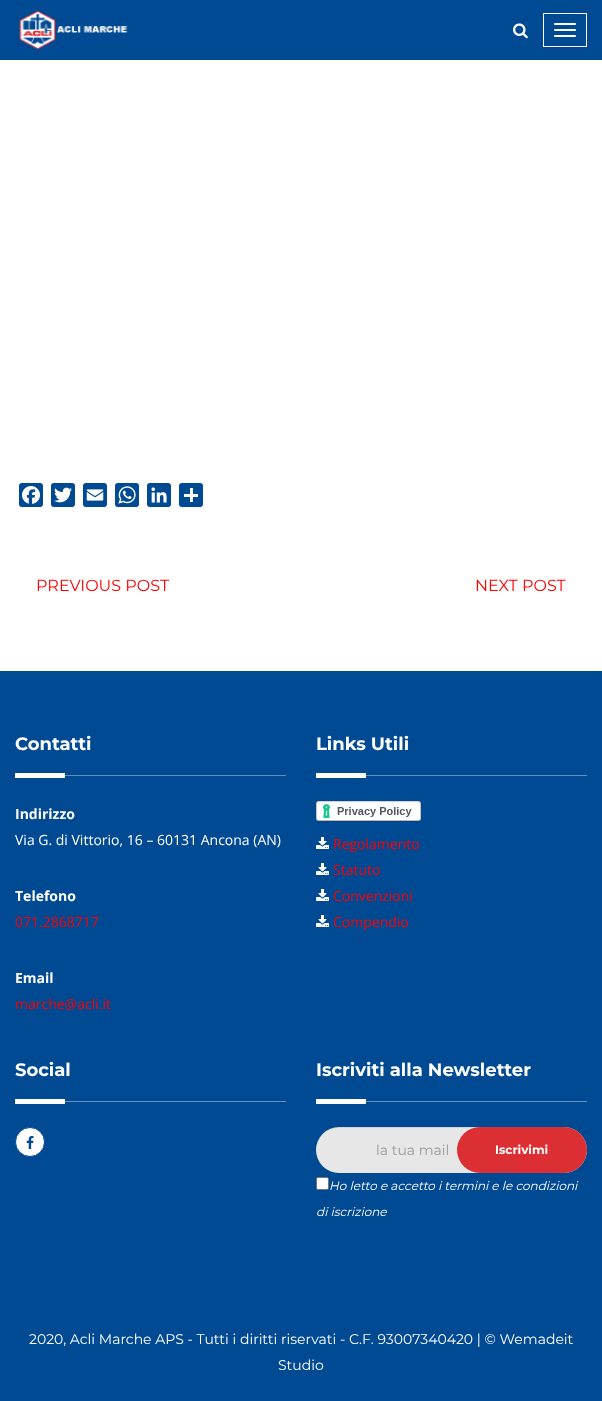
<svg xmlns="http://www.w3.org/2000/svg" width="602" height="1401">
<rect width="100%" height="100%" fill="#fff"/>
<rect width="602" height="60" fill="#004a93"/>
<image x="18" y="11" width="110" height="39" href="media/1.png"/>
<image x="513" y="23" width="15" height="16" href="media/2.png"/>
<rect x="543.5" y="13.5" width="43" height="33" fill="none" stroke="#fff"/>
<rect x="554" y="23" width="22" height="2" rx="1" fill="#fff"/>
<rect x="554" y="29" width="22" height="2" rx="1" fill="#fff"/>
<rect x="554" y="35" width="22" height="2" rx="1" fill="#fff"/>
<rect x="19" y="483" width="24" height="24" rx="3" fill="#004a93"/>
<image x="22" y="486" width="18" height="18" href="media/3.png"/>
<rect x="51" y="483" width="24" height="24" rx="3" fill="#004a93"/>
<image x="54" y="487" width="18" height="16" href="media/4.png"/>
<rect x="83" y="483" width="24" height="24" rx="3" fill="#004a93"/>
<image x="86" y="489" width="18" height="12" href="media/5.png"/>
<rect x="115" y="483" width="24" height="24" rx="3" fill="#004a93"/>
<image x="118" y="486" width="18" height="18" href="media/6.png"/>
<rect x="147" y="483" width="24" height="24" rx="3" fill="#004a93"/>
<image x="151" y="487" width="16" height="16" href="media/7.png"/>
<rect x="179" y="483" width="24" height="24" rx="3" fill="#004a93"/>
<rect x="190" y="488" width="3" height="14" fill="#fff"/>
<rect x="184" y="494" width="14" height="3" fill="#fff"/>
<text x="36" y="591" style="font-family:Montserrat;font-size:16px;font-weight:100;fill:#f00">PREVIOUS POST</text>
<text x="475" y="591" style="font-family:Montserrat;font-size:16px;font-weight:100;fill:#f00">NEXT POST</text>
<rect y="671" width="602" height="730" fill="#004a93"/>
<text x="15" y="750" style="font-family:Montserrat;font-size:18px;font-weight:bold;fill:#fff">Contatti</text>
<rect x="15" y="773" width="50" height="5" fill="#fff"/>
<rect x="65" y="775" width="221" height="1" fill="#668fb8"/>
<text x="15" y="819" style="font-family:Open Sans;font-size:14px;font-weight:bold;fill:#fff">Indirizzo</text>
<text x="15" y="845" style="font-family:Open Sans;font-size:14px;fill:#fff">Via G. di Vittorio, 16 – 60131 Ancona (AN)</text>
<text x="15" y="901" style="font-family:Open Sans;font-size:14px;font-weight:bold;fill:#fff">Telefono</text>
<text x="15" y="927" style="font-family:Open Sans;font-size:14px;fill:#f00">071.2868717</text>
<text x="15" y="983" style="font-family:Open Sans;font-size:14px;font-weight:bold;fill:#fff">Email</text>
<text x="15" y="1009" style="font-family:Open Sans;font-size:14px;fill:#f00">marche@acli.it</text>
<text x="316" y="750" style="font-family:Montserrat;font-size:18px;font-weight:bold;fill:#fff">Links Utili</text>
<rect x="316" y="773" width="50" height="5" fill="#fff"/>
<rect x="366" y="775" width="221" height="1" fill="#668fb8"/>
<image x="316" y="801" width="105" height="21" href="media/8.png"/>
<image x="316" y="837" width="13" height="12" href="media/9.png"/>
<text x="333" y="849" style="font-family:Open Sans;font-size:14px;fill:#f00">Regolamento</text>
<image x="316" y="863" width="13" height="12" href="media/9.png"/>
<text x="333" y="875" style="font-family:Open Sans;font-size:14px;fill:#f00">Statuto</text>
<image x="316" y="889" width="13" height="12" href="media/9.png"/>
<text x="333" y="901" style="font-family:Open Sans;font-size:14px;fill:#f00">Convenzioni</text>
<image x="316" y="915" width="13" height="12" href="media/9.png"/>
<text x="333" y="927" style="font-family:Open Sans;font-size:14px;fill:#f00">Compendio</text>
<text x="15" y="1076" style="font-family:Montserrat;font-size:18px;font-weight:bold;fill:#fff">Social</text>
<rect x="15" y="1099" width="50" height="5" fill="#fff"/>
<rect x="65" y="1101" width="221" height="1" fill="#668fb8"/>
<circle cx="30" cy="1142" r="14.5" fill="#fff" stroke="#004a93"/>
<image x="26" y="1136" width="8" height="13" href="media/10.png"/>
<text x="316" y="1076" style="font-family:Montserrat;font-size:18px;font-weight:bold;fill:#fff">Iscriviti alla Newsletter</text>
<rect x="316" y="1099" width="50" height="5" fill="#fff"/>
<rect x="366" y="1101" width="221" height="1" fill="#668fb8"/>
<rect x="316" y="1127" width="271" height="46" rx="23" fill="#e7e7e7"/>
<path d="M339 1128h225c13 0 23 10 23 22c0-13-10-23-23-23h-225c-13 0-23 10-23 23c0-12 10-22 23-22z" fill="#00000012"/>
<text x="376" y="1155" style="font-family:Montserrat;font-size:14px;font-weight:100;fill:#999">la tua mail</text>
<rect x="457" y="1127" width="130" height="46" rx="23" fill="#dc2f34"/>
<text x="495" y="1154" style="font-family:Montserrat;font-size:12px;font-weight:bold;fill:#fff">Iscrivimi</text>
<rect x="316.5" y="1177.5" width="12" height="12" rx="1.5" fill="#fff" stroke="#767676"/>
<text x="329" y="1190" style="font-family:Montserrat;font-size:12px;font-weight:100;font-style:italic;fill:#fff">Ho letto e accetto i termini e le condizioni</text>
<text x="316" y="1216" style="font-family:Montserrat;font-size:12px;font-weight:100;font-style:italic;fill:#fff">di iscrizione</text>
<text x="29" y="1344" style="font-family:Montserrat;font-size:14px;font-weight:100;fill:#fff">2020, Acli Marche APS - Tutti i diritti riservati - C.F. 93007340420 | © Wemadeit</text>
<text x="278" y="1370" style="font-family:Montserrat;font-size:14px;font-weight:100;fill:#fff">Studio</text>
</svg>
